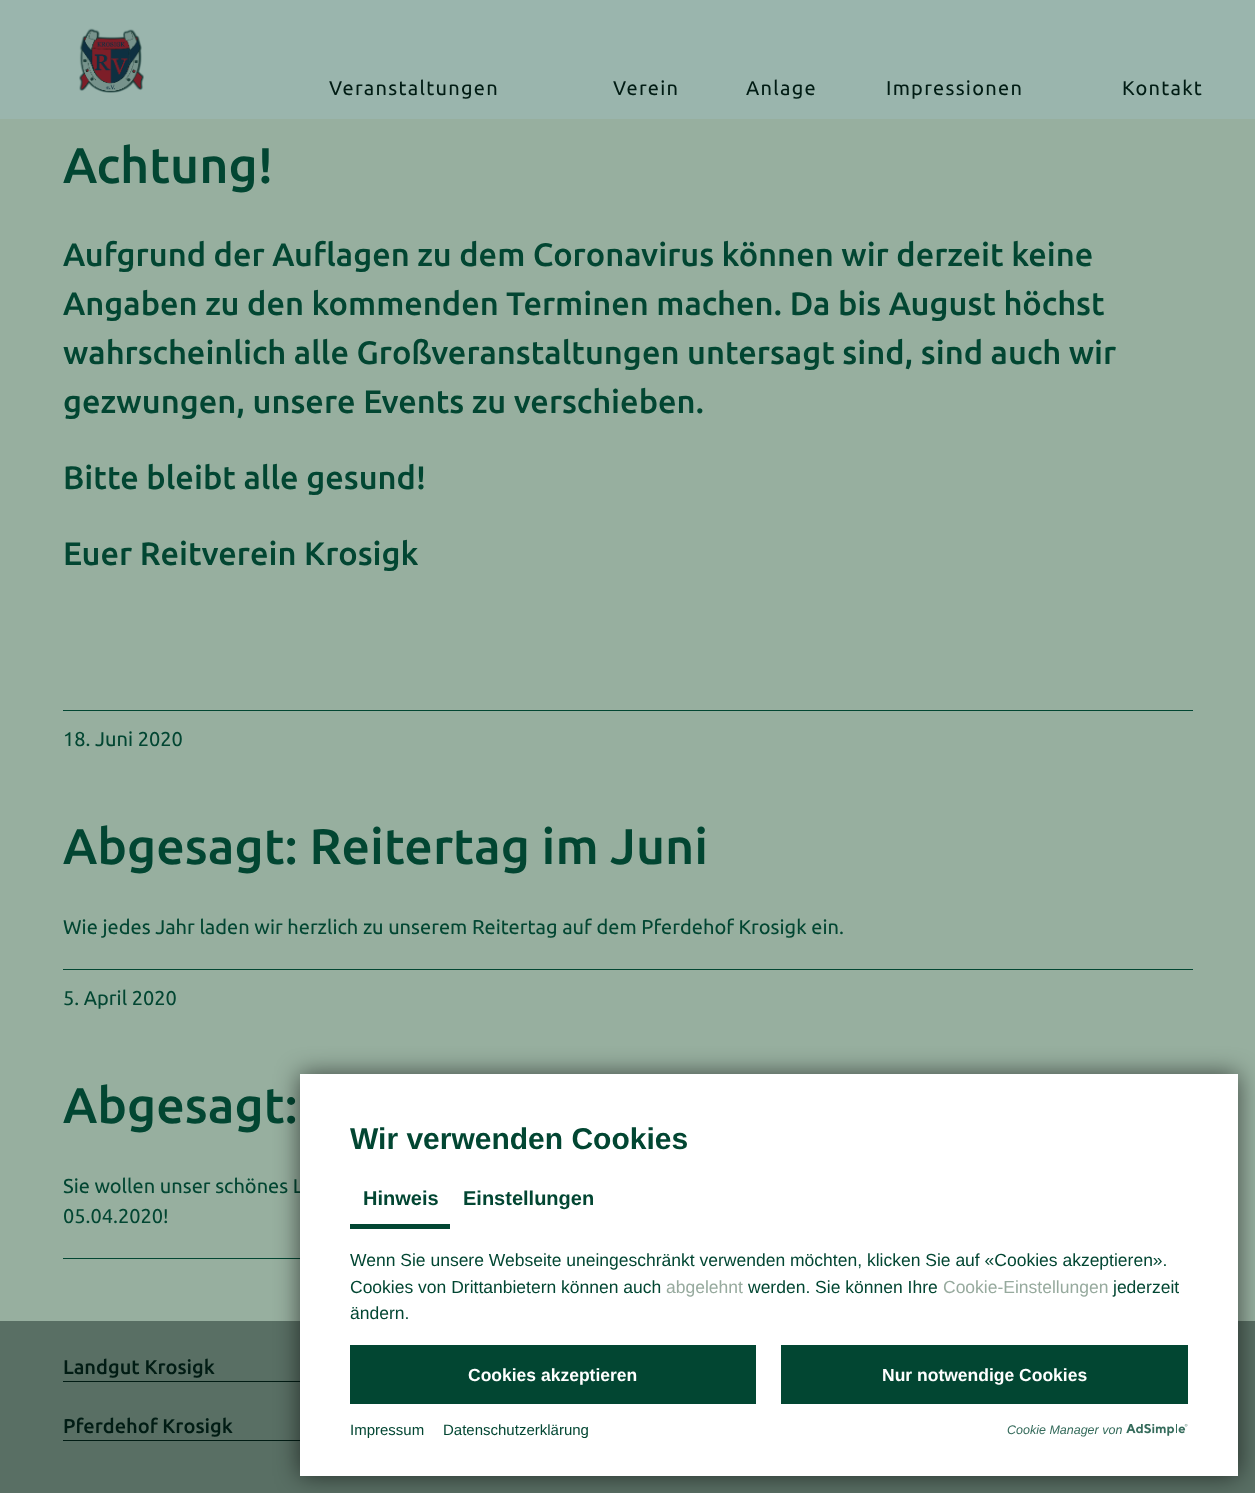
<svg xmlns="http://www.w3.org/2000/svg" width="1255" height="1493">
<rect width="100%" height="100%" fill="#97af9f"/>
<rect width="1255" height="119" fill="#9ab5ad"/>
<image x="79" y="28" width="65" height="65" href="media/1.png"/>
<text x="329" y="95" style="font-family:Ubuntu;font-size:20px;letter-spacing:1.25px;fill:#011c14">Veranstaltungen</text>
<text x="613" y="95" style="font-family:Ubuntu;font-size:20px;letter-spacing:1.25px;fill:#011c14">Verein</text>
<text x="746" y="95" style="font-family:Ubuntu;font-size:20px;letter-spacing:1.25px;fill:#011c14">Anlage</text>
<text x="886" y="95" style="font-family:Ubuntu;font-size:20px;letter-spacing:1.25px;fill:#011c14">Impressionen</text>
<text x="1122" y="95" style="font-family:Ubuntu;font-size:20px;letter-spacing:1.25px;fill:#011c14">Kontakt</text>
<text x="63" y="183" style="font-family:Ubuntu;font-size:50px;font-weight:500;fill:#024632">Achtung!</text>
<text x="63" y="266" style="font-family:Ubuntu;font-size:32.5px;font-weight:500;fill:#024632">Aufgrund der Auflagen zu dem Coronavirus können wir derzeit keine</text>
<text x="63" y="315" style="font-family:Ubuntu;font-size:32.5px;font-weight:500;fill:#024632">Angaben zu den kommenden Terminen machen. Da bis August höchst</text>
<text x="63" y="364" style="font-family:Ubuntu;font-size:32.5px;font-weight:500;fill:#024632">wahrscheinlich alle Großveranstaltungen untersagt sind, sind auch wir</text>
<text x="63" y="413" style="font-family:Ubuntu;font-size:32.5px;font-weight:500;fill:#024632">gezwungen, unsere Events zu verschieben.</text>
<text x="63" y="489" style="font-family:Ubuntu;font-size:32.5px;font-weight:500;fill:#024632">Bitte bleibt alle gesund!</text>
<text x="63" y="565" style="font-family:Ubuntu;font-size:32.5px;font-weight:500;fill:#024632">Euer Reitverein Krosigk</text>
<rect x="63" y="710" width="1130" height="1" fill="#024632"/>
<text x="63" y="746" style="font-family:Ubuntu;font-size:20px;fill:#024632">18. Juni 2020</text>
<rect x="63" y="969" width="1130" height="1" fill="#024632"/>
<text x="63" y="864" style="font-family:Ubuntu;font-size:50px;font-weight:500;fill:#024632">Abgesagt: Reitertag im Juni</text>
<text x="63" y="934" style="font-family:Ubuntu;font-size:20px;fill:#024632">Wie jedes Jahr laden wir herzlich zu unserem Reitertag auf dem Pferdehof Krosigk ein.</text>
<text x="63" y="1005" style="font-family:Ubuntu;font-size:20px;fill:#024632">5. April 2020</text>
<rect x="63" y="1258" width="237" height="1" fill="#024632"/>
<text x="63" y="1123" style="font-family:Ubuntu;font-size:50px;font-weight:500;fill:#024632">Abgesagt:</text>
<text x="63" y="1193" style="font-family:Ubuntu;font-size:20px;fill:#024632">Sie wollen unser schönes L</text>
<text x="63" y="1223" style="font-family:Ubuntu;font-size:20px;fill:#024632">05.04.2020!</text>
<rect y="1321" width="1255" height="172" fill="#596f64"/>
<rect x="63" y="1381" width="237" height="1" fill="#011c14"/>
<text x="63" y="1374" style="font-family:Ubuntu;font-size:20px;font-weight:500;fill:#011c14">Landgut Krosigk</text>
<rect x="63" y="1440" width="237" height="1" fill="#011c14"/>
<text x="63" y="1433" style="font-family:Ubuntu;font-size:20px;font-weight:500;fill:#011c14">Pferdehof Krosigk</text>
<rect x="300" y="1074" width="938" height="402" fill="#00000099" filter="blur(12.5px)"/>
<rect x="300" y="1074" width="938" height="402" fill="#fff"/>
<text x="350" y="1149" style="font-family:Liberation Sans;font-size:30px;font-weight:bold;fill:#024632">Wir verwenden Cookies</text>
<rect x="350" y="1224" width="100" height="5" fill="#024632"/>
<text x="363" y="1205" style="font-family:Liberation Sans;font-size:20px;font-weight:bold;fill:#024632">Hinweis</text>
<text x="463" y="1205" style="font-family:Liberation Sans;font-size:20px;font-weight:bold;fill:#024632">Einstellungen</text>
<text x="350" y="1266" style="font-family:Liberation Sans;font-size:17.5px;fill:#024632">Wenn Sie unsere Webseite uneingeschränkt verwenden möchten, klicken Sie auf «Cookies akzeptieren».</text>
<text x="350" y="1293" style="font-family:Liberation Sans;font-size:17.5px;fill:#024632">Cookies von Drittanbietern können auch</text>
<text x="666" y="1293" style="font-family:Liberation Sans;font-size:17.5px;fill:#97aa9e">abgelehnt</text>
<text x="748" y="1293" style="font-family:Liberation Sans;font-size:17.5px;fill:#024632">werden. Sie können Ihre</text>
<text x="943" y="1293" style="font-family:Liberation Sans;font-size:17.5px;fill:#97aa9e">Cookie-Einstellungen</text>
<text x="1113" y="1293" style="font-family:Liberation Sans;font-size:17.5px;fill:#024632">jederzeit</text>
<text x="350" y="1319" style="font-family:Liberation Sans;font-size:17.5px;fill:#024632">ändern.</text>
<rect x="350" y="1345" width="406" height="59" fill="#024632"/>
<text x="468" y="1381" style="font-family:Liberation Sans;font-size:17.5px;font-weight:bold;fill:#fff">Cookies akzeptieren</text>
<rect x="781" y="1345" width="407" height="59" fill="#024632"/>
<text x="882" y="1381" style="font-family:Liberation Sans;font-size:17.5px;font-weight:bold;fill:#fff">Nur notwendige Cookies</text>
<text x="350" y="1435" style="font-family:Liberation Sans;font-size:15px;fill:#024632">Impressum</text>
<text x="443" y="1435" style="font-family:Liberation Sans;font-size:15px;fill:#024632">Datenschutzerklärung</text>
<text x="1007" y="1434" style="font-family:Liberation Sans;font-size:12.5px;font-style:italic;fill:#356b5b">Cookie Manager von</text>
<image x="1126" y="1424" width="62" height="12" href="media/2.png"/>
</svg>
